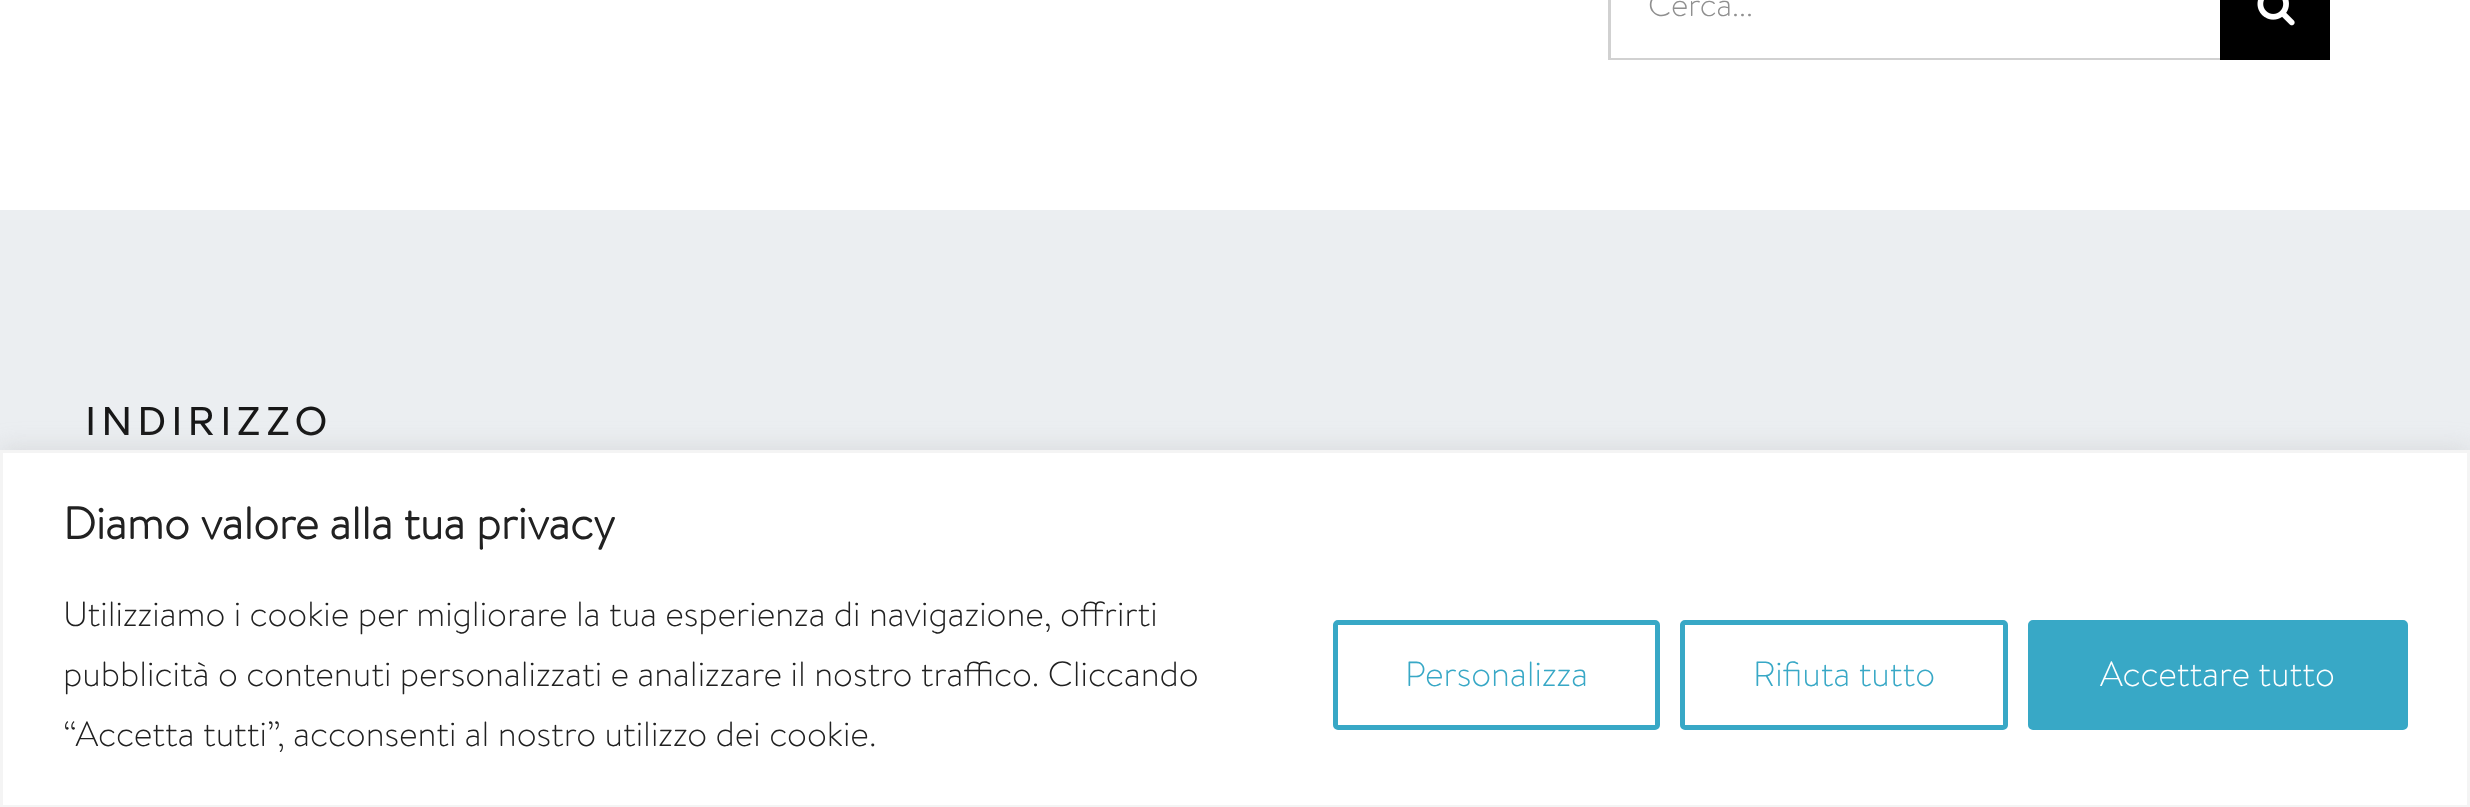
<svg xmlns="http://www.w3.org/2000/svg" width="2470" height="807">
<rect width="100%" height="100%" fill="#fff"/>
<rect x="1608" y="58" width="612" height="2" fill="#d1d1d1"/>
<rect x="1608" width="3" height="60" fill="#d1d1d1"/>
<text x="1648" y="16" style="font-family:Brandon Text;font-size:32.5px;font-weight:300;fill:#8f8f8f">Cerca...</text>
<rect x="2220" width="110" height="60" fill="#000"/>
<image x="2257" y="0" width="38" height="26" href="media/1.png"/>
<rect y="210" width="2470" height="240" fill="#ebeef1"/>
<text x="85" y="435" style="font-family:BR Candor;font-size:40px;letter-spacing:5px;fill:#171717">INDIRIZZO</text>
<rect y="448" width="2470" height="357" fill="#acabab4d" filter="blur(12.5px)"/>
<rect x="1.5" y="451.5" width="2467" height="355" fill="#fff" stroke="#f4f4f4" stroke-width="3"/>
<text x="63" y="539" style="font-family:Brandon Text;font-size:45px;font-weight:bold;fill:#212121">Diamo valore alla tua privacy</text>
<text x="63" y="626" style="font-family:Brandon Text;font-size:35px;font-weight:300;fill:#212121">Utilizziamo i cookie per migliorare la tua esperienza di navigazione, offrirti</text>
<text x="63" y="686" style="font-family:Brandon Text;font-size:35px;font-weight:300;fill:#212121">pubblicità o contenuti personalizzati e analizzare il nostro traffico. Cliccando</text>
<text x="63" y="746" style="font-family:Brandon Text;font-size:35px;font-weight:300;fill:#212121">“Accetta tutti”, acconsenti al nostro utilizzo dei cookie.</text>
<rect x="1335.5" y="622.5" width="322" height="105" rx="2.5" fill="none" stroke="#38a8c6" stroke-width="5"/>
<text x="1405" y="686" style="font-family:Brandon Text;font-size:35px;font-weight:300;fill:#38a8c6">Personalizza</text>
<rect x="1682.5" y="622.5" width="323" height="105" rx="2.5" fill="none" stroke="#38a8c6" stroke-width="5"/>
<text x="1753" y="686" style="font-family:Brandon Text;font-size:35px;font-weight:300;fill:#38a8c6">Rifiuta tutto</text>
<rect x="2030.5" y="622.5" width="375" height="105" rx="2.5" fill="#38a8c6" stroke="#38a8c6" stroke-width="5"/>
<text x="2100" y="686" style="font-family:Brandon Text;font-size:35px;font-weight:300;fill:#fff">Accettare tutto</text>
</svg>
